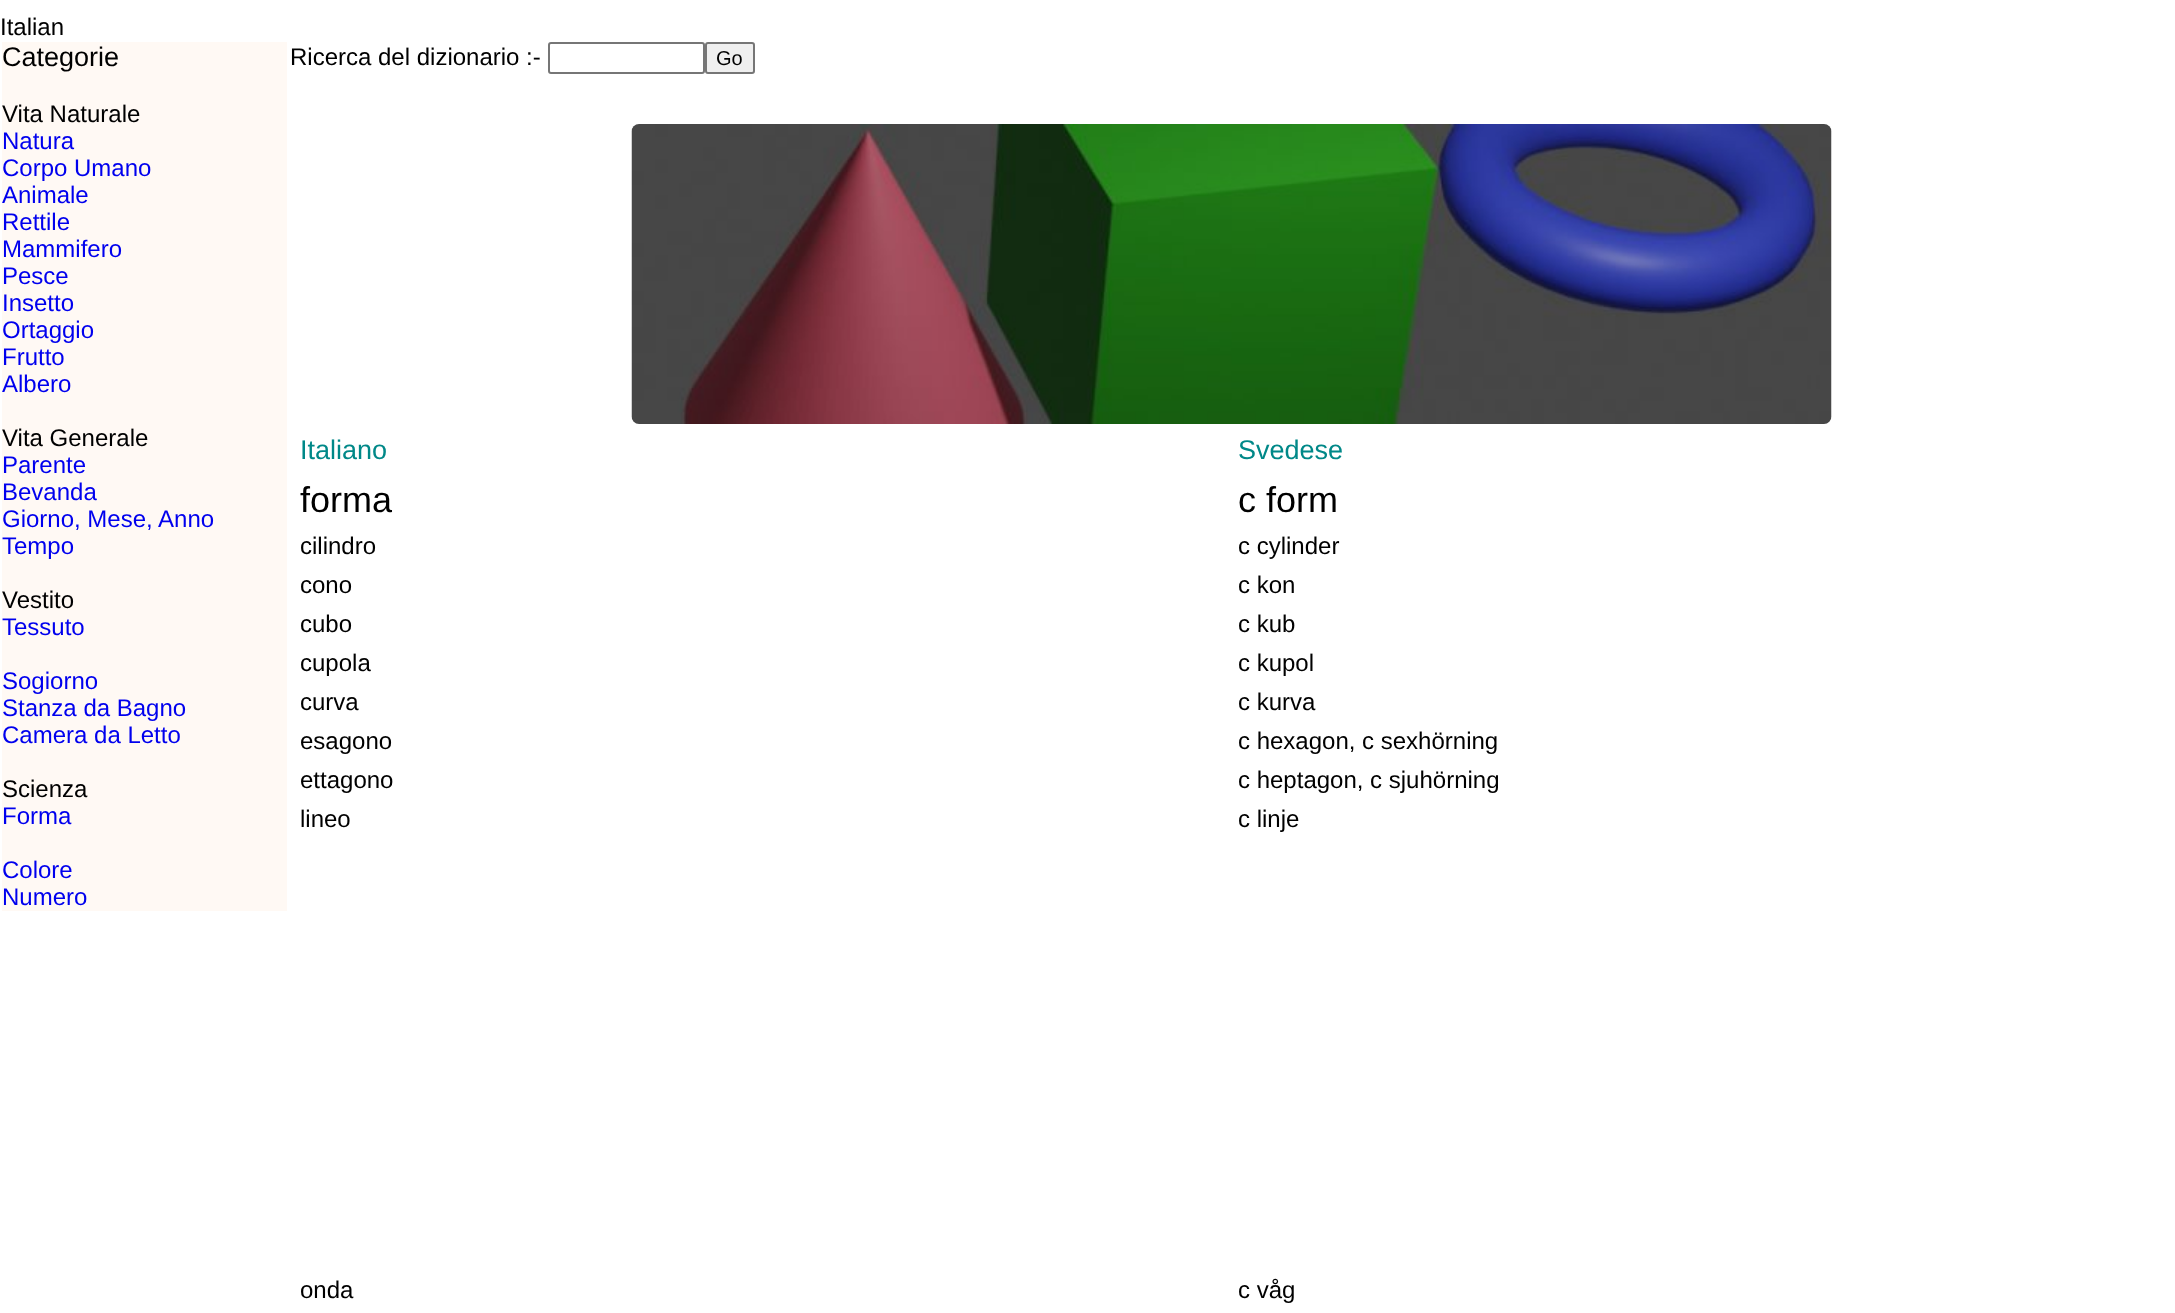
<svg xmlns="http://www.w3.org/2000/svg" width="2175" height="1313">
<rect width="100%" height="100%" fill="#fff"/>
<text x="0" y="35" style="font-family:Liberation Sans;font-size:24px;fill:#000">Italian</text>
<rect x="2" y="42" width="285" height="869" fill="#fff9f4"/>
<text x="2" y="66" style="font-family:Liberation Sans;font-size:27px;fill:#000">Categorie</text>
<text x="2" y="122" style="font-family:Liberation Sans;font-size:24px;fill:#000">Vita Naturale</text>
<text x="2" y="149" style="font-family:Liberation Sans;font-size:24px;fill:#00e">Natura</text>
<text x="2" y="176" style="font-family:Liberation Sans;font-size:24px;fill:#00e">Corpo Umano</text>
<text x="2" y="203" style="font-family:Liberation Sans;font-size:24px;fill:#00e">Animale</text>
<text x="2" y="230" style="font-family:Liberation Sans;font-size:24px;fill:#00e">Rettile</text>
<text x="2" y="257" style="font-family:Liberation Sans;font-size:24px;fill:#00e">Mammifero</text>
<text x="2" y="284" style="font-family:Liberation Sans;font-size:24px;fill:#00e">Pesce</text>
<text x="2" y="311" style="font-family:Liberation Sans;font-size:24px;fill:#00e">Insetto</text>
<text x="2" y="338" style="font-family:Liberation Sans;font-size:24px;fill:#00e">Ortaggio</text>
<text x="2" y="365" style="font-family:Liberation Sans;font-size:24px;fill:#00e">Frutto</text>
<text x="2" y="392" style="font-family:Liberation Sans;font-size:24px;fill:#00e">Albero</text>
<text x="2" y="446" style="font-family:Liberation Sans;font-size:24px;fill:#000">Vita Generale</text>
<text x="2" y="473" style="font-family:Liberation Sans;font-size:24px;fill:#00e">Parente</text>
<text x="2" y="500" style="font-family:Liberation Sans;font-size:24px;fill:#00e">Bevanda</text>
<text x="2" y="527" style="font-family:Liberation Sans;font-size:24px;fill:#00e">Giorno, Mese, Anno</text>
<text x="2" y="554" style="font-family:Liberation Sans;font-size:24px;fill:#00e">Tempo</text>
<text x="2" y="608" style="font-family:Liberation Sans;font-size:24px;fill:#000">Vestito</text>
<text x="2" y="635" style="font-family:Liberation Sans;font-size:24px;fill:#00e">Tessuto</text>
<text x="2" y="689" style="font-family:Liberation Sans;font-size:24px;fill:#00e">Sogiorno</text>
<text x="2" y="716" style="font-family:Liberation Sans;font-size:24px;fill:#00e">Stanza da Bagno</text>
<text x="2" y="743" style="font-family:Liberation Sans;font-size:24px;fill:#00e">Camera da Letto</text>
<text x="2" y="797" style="font-family:Liberation Sans;font-size:24px;fill:#000">Scienza</text>
<text x="2" y="824" style="font-family:Liberation Sans;font-size:24px;fill:#00e">Forma</text>
<text x="2" y="878" style="font-family:Liberation Sans;font-size:24px;fill:#00e">Colore</text>
<text x="2" y="905" style="font-family:Liberation Sans;font-size:24px;fill:#00e">Numero</text>
<text x="290" y="65" style="font-family:Liberation Sans;font-size:24px;fill:#000">Ricerca del dizionario :-</text>
<rect x="549" y="43" width="155" height="30" rx="2" fill="none" stroke="#767676" stroke-width="2"/>
<rect x="706" y="43" width="48" height="30" rx="2" fill="#efefef" stroke="#767676" stroke-width="2"/>
<text x="716" y="65" style="font-family:Liberation Sans;font-size:20px;fill:#000">Go</text>
<image x="631" y="124" width="1201" height="300" href="media/1.png"/>
<text x="300" y="459" style="font-family:Liberation Sans;font-size:27px;fill:#088">Italiano</text>
<text x="1238" y="459" style="font-family:Liberation Sans;font-size:27px;fill:#088">Svedese</text>
<text x="300" y="512" style="font-family:Liberation Sans;font-size:36px;fill:#000">forma</text>
<text x="1238" y="512" style="font-family:Liberation Sans;font-size:36px;fill:#000">c form</text>
<text x="300" y="554" style="font-family:Liberation Sans;font-size:24px;fill:#000">cilindro</text>
<text x="1238" y="554" style="font-family:Liberation Sans;font-size:24px;fill:#000">c cylinder</text>
<text x="300" y="593" style="font-family:Liberation Sans;font-size:24px;fill:#000">cono</text>
<text x="1238" y="593" style="font-family:Liberation Sans;font-size:24px;fill:#000">c kon</text>
<text x="300" y="632" style="font-family:Liberation Sans;font-size:24px;fill:#000">cubo</text>
<text x="1238" y="632" style="font-family:Liberation Sans;font-size:24px;fill:#000">c kub</text>
<text x="300" y="671" style="font-family:Liberation Sans;font-size:24px;fill:#000">cupola</text>
<text x="1238" y="671" style="font-family:Liberation Sans;font-size:24px;fill:#000">c kupol</text>
<text x="300" y="710" style="font-family:Liberation Sans;font-size:24px;fill:#000">curva</text>
<text x="1238" y="710" style="font-family:Liberation Sans;font-size:24px;fill:#000">c kurva</text>
<text x="300" y="749" style="font-family:Liberation Sans;font-size:24px;fill:#000">esagono</text>
<text x="1238" y="749" style="font-family:Liberation Sans;font-size:24px;fill:#000">c hexagon, c sexhörning</text>
<text x="300" y="788" style="font-family:Liberation Sans;font-size:24px;fill:#000">ettagono</text>
<text x="1238" y="788" style="font-family:Liberation Sans;font-size:24px;fill:#000">c heptagon, c sjuhörning</text>
<text x="300" y="827" style="font-family:Liberation Sans;font-size:24px;fill:#000">lineo</text>
<text x="1238" y="827" style="font-family:Liberation Sans;font-size:24px;fill:#000">c linje</text>
<text x="300" y="1298" style="font-family:Liberation Sans;font-size:24px;fill:#000">onda</text>
<text x="1238" y="1298" style="font-family:Liberation Sans;font-size:24px;fill:#000">c våg</text>
</svg>
